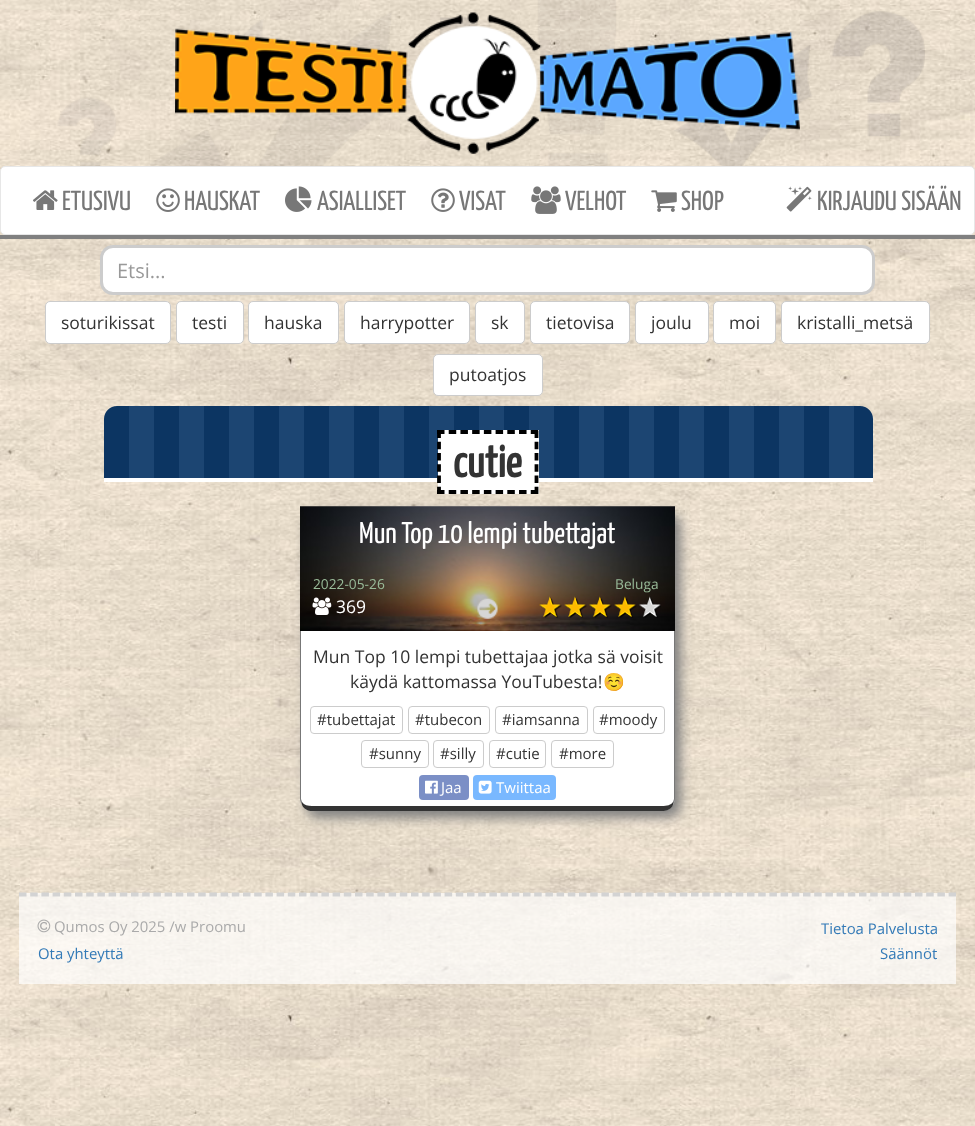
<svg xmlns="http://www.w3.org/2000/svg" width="975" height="1126">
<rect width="100%" height="100%" fill="#fff"/>
<image x="0" y="0" width="975" height="1126" href="media/1.png"/>
<image x="57" y="0" width="868" height="166" href="media/2.png"/>
<image x="175" y="12" width="625" height="142" href="media/3.png"/>
<rect x="0.5" y="166.5" width="974" height="68" rx="4.5" fill="#fff" stroke="#e7e7e7"/>
<image x="33" y="190" width="25" height="20" href="media/4.png"/>
<text x="62" y="210" style="font-family:Yanone Kaffeesatz;font-size:27.5px;font-weight:200;fill:#777">ETUSIVU</text>
<image x="156" y="188" width="24" height="24" href="media/5.png"/>
<text x="184" y="210" style="font-family:Yanone Kaffeesatz;font-size:27.5px;font-weight:200;fill:#777">HAUSKAT</text>
<image x="285" y="186" width="27" height="26" href="media/6.png"/>
<text x="317" y="210" style="font-family:Yanone Kaffeesatz;font-size:27.5px;font-weight:200;fill:#777">ASIALLISET</text>
<image x="431" y="188" width="24" height="24" href="media/7.png"/>
<text x="459" y="210" style="font-family:Yanone Kaffeesatz;font-size:27.5px;font-weight:200;fill:#777">VISAT</text>
<image x="531" y="186" width="30" height="28" href="media/8.png"/>
<text x="565" y="210" style="font-family:Yanone Kaffeesatz;font-size:27.5px;font-weight:200;fill:#777">VELHOT</text>
<image x="651" y="190" width="26" height="22" href="media/9.png"/>
<text x="681" y="210" style="font-family:Yanone Kaffeesatz;font-size:27.5px;font-weight:200;fill:#777">SHOP</text>
<image x="786" y="186" width="26" height="26" href="media/10.png"/>
<text x="817" y="210" style="font-family:Yanone Kaffeesatz;font-size:27.5px;font-weight:200;fill:#777">KIRJAUDU SISÄÄN</text>
<rect y="235" width="975" height="4" fill="#808080"/>
<rect x="101.5" y="246.5" width="772" height="47" rx="11.5" fill="#fff" stroke="#ccc" stroke-width="3"/>
<text x="117" y="278" style="font-family:Open Sans;font-size:20px;fill:#999">Etsi...</text>
<rect x="45.5" y="301.5" width="125" height="42" rx="4.5" fill="#fff" stroke="#ccc"/>
<text x="61" y="329" style="font-family:Open Sans;font-size:17.5px;fill:#333">soturikissat</text>
<rect x="176.5" y="301.5" width="67" height="42" rx="4.5" fill="#fff" stroke="#ccc"/>
<text x="192" y="329" style="font-family:Open Sans;font-size:17.5px;fill:#333">testi</text>
<rect x="248.5" y="301.5" width="90" height="42" rx="4.5" fill="#fff" stroke="#ccc"/>
<text x="264" y="329" style="font-family:Open Sans;font-size:17.5px;fill:#333">hauska</text>
<rect x="344.5" y="301.5" width="125" height="42" rx="4.5" fill="#fff" stroke="#ccc"/>
<text x="360" y="329" style="font-family:Open Sans;font-size:17.5px;fill:#333">harrypotter</text>
<rect x="475.5" y="301.5" width="49" height="42" rx="4.5" fill="#fff" stroke="#ccc"/>
<text x="491" y="329" style="font-family:Open Sans;font-size:17.5px;fill:#333">sk</text>
<rect x="530.5" y="301.5" width="99" height="42" rx="4.5" fill="#fff" stroke="#ccc"/>
<text x="546" y="329" style="font-family:Open Sans;font-size:17.5px;fill:#333">tietovisa</text>
<rect x="635.5" y="301.5" width="73" height="42" rx="4.5" fill="#fff" stroke="#ccc"/>
<text x="651" y="329" style="font-family:Open Sans;font-size:17.5px;fill:#333">joulu</text>
<rect x="713.5" y="301.5" width="62" height="42" rx="4.5" fill="#fff" stroke="#ccc"/>
<text x="729" y="329" style="font-family:Open Sans;font-size:17.5px;fill:#333">moi</text>
<rect x="781.5" y="301.5" width="148" height="42" rx="4.5" fill="#fff" stroke="#ccc"/>
<text x="797" y="329" style="font-family:Open Sans;font-size:17.5px;fill:#333">kristalli_metsä</text>
<rect x="433.5" y="354.5" width="109" height="41" rx="4.5" fill="#fff" stroke="#ccc"/>
<text x="449" y="381" style="font-family:Open Sans;font-size:17.5px;fill:#333">putoatjos</text>
<image x="104" y="406" width="769" height="72" href="media/11.png"/>
<rect x="104" y="478" width="769" height="4" fill="#fff"/>
<rect x="438" y="430" width="101" height="64" fill="#fff"/>
<path d="M437 432h101" fill="none" stroke="#000" stroke-width="3.8" stroke-dasharray="7.5 4.22"/>
<path d="M536.5 430.5v63.5" fill="none" stroke="#000" stroke-width="3.8" stroke-dasharray="7.5 3.75"/>
<path d="M437 492h101" fill="none" stroke="#000" stroke-width="3.8" stroke-dasharray="7.5 4.22"/>
<path d="M439 430.5v63.5" fill="none" stroke="#000" stroke-width="3.8" stroke-dasharray="7.5 3.75"/>
<text x="453" y="477" style="font-family:Yanone Kaffeesatz;font-size:45px;font-weight:bold;fill:#333">cutie</text>
<rect x="306" y="513" width="375" height="305" rx="13" fill="#808080" filter="blur(6px)"/>
<image x="300" y="506" width="375" height="125" href="media/12.png"/>
<text x="359" y="543" style="font-family:Yanone Kaffeesatz;font-size:30px;font-weight:200;fill:#fff">Mun Top 10 lempi tubettajat</text>
<text x="313" y="589" style="font-family:Open Sans;font-size:13.75px;fill:#9b9">2022-05-26</text>
<text x="615" y="589" style="font-family:Open Sans;font-size:13.75px;fill:#9b9">Beluga</text>
<image x="312" y="597" width="20" height="18" href="media/13.png"/>
<text x="336" y="613" style="font-family:Open Sans;font-size:17.5px;fill:#fff">369</text>
<image x="477" y="598" width="21" height="21" href="media/14.png"/>
<image x="539" y="596" width="122" height="22" href="media/15.png"/>
<path d="M300 631h375v167c0 7-6 13-13 13h-349c-7 0-13-6-13-13z" fill="#fff"/>
<path d="M675 631h-1v168l-1 3v3c1-2 2-4 2-6z" fill="#777"/>
<path d="M673 805c-2 4-6 6-11 6h-350c-4 0-8-2-10-6v-3c2 3 6 4 10 4h350c5 0 9-1 11-4z" fill="#333"/>
<path d="M300 631v168c0 2 1 4 2 6v-3l-1-3v-168z" fill="#777"/>
<text x="313" y="663" style="font-family:Open Sans;font-size:17.5px;fill:#333">Mun Top 10 lempi tubettajaa jotka sä voisit</text>
<text x="350" y="688" style="font-family:Open Sans;font-size:17.5px;fill:#333">käydä kattomassa YouTubesta!</text>
<text x="603" y="688" style="font-family:Noto Color Emoji;font-size:17.5px;fill:#333">☺️</text>
<rect x="310.5" y="706.5" width="92" height="27" rx="3.5" fill="none" stroke="#ccc"/>
<text x="317" y="725" style="font-family:Open Sans;font-size:15px;fill:#333">#tubettajat</text>
<rect x="408.5" y="706.5" width="81" height="27" rx="3.5" fill="none" stroke="#ccc"/>
<text x="415" y="725" style="font-family:Open Sans;font-size:15px;fill:#333">#tubecon</text>
<rect x="495.5" y="706.5" width="92" height="27" rx="3.5" fill="none" stroke="#ccc"/>
<text x="502" y="725" style="font-family:Open Sans;font-size:15px;fill:#333">#iamsanna</text>
<rect x="593.5" y="706.5" width="71" height="27" rx="3.5" fill="none" stroke="#ccc"/>
<text x="599" y="725" style="font-family:Open Sans;font-size:15px;fill:#333">#moody</text>
<rect x="361.5" y="740.5" width="67" height="27" rx="3.5" fill="none" stroke="#ccc"/>
<text x="369" y="759" style="font-family:Open Sans;font-size:15px;fill:#333">#sunny</text>
<rect x="433.5" y="740.5" width="50" height="27" rx="3.5" fill="none" stroke="#ccc"/>
<text x="440" y="759" style="font-family:Open Sans;font-size:15px;fill:#333">#silly</text>
<rect x="489.5" y="740.5" width="56" height="27" rx="3.5" fill="none" stroke="#ccc"/>
<text x="496" y="759" style="font-family:Open Sans;font-size:15px;fill:#333">#cutie</text>
<rect x="551.5" y="740.5" width="62" height="27" rx="3.5" fill="none" stroke="#ccc"/>
<text x="559" y="759" style="font-family:Open Sans;font-size:15px;fill:#333">#more</text>
<rect x="419" y="775" width="50" height="25" rx="4" fill="#7b8fc6"/>
<image x="425" y="780" width="13" height="14" href="media/16.png"/>
<text x="441" y="793" style="font-family:Open Sans;font-size:15px;fill:#fff">Jaa</text>
<rect x="473" y="775" width="83" height="25" rx="4" fill="#79b8ff"/>
<image x="478" y="780" width="14" height="14" href="media/17.png"/>
<text x="496" y="793" style="font-family:Open Sans;font-size:15px;fill:#fff">Twiittaa</text>
<rect x="19" y="893" width="937" height="91" fill="#ffffffb3"/>
<path d="M19 894.5h937" fill="none" stroke="#d3d3d3" stroke-width="3.8" stroke-dasharray="7.5 3.7"/>
<image x="37" y="919" width="14" height="14" href="media/18.png"/>
<text x="54" y="932" style="font-family:Open Sans;font-size:14.9px;fill:#aaa">Qumos Oy 2025 /w Proomu</text>
<text x="38" y="959" style="font-family:Open Sans;font-size:14.9px;fill:#337ab7">Ota yhteyttä</text>
<text x="821" y="934" style="font-family:Open Sans;font-size:14.9px;fill:#337ab7">Tietoa Palvelusta</text>
<text x="880" y="959" style="font-family:Open Sans;font-size:14.9px;fill:#337ab7">Säännöt</text>
</svg>
